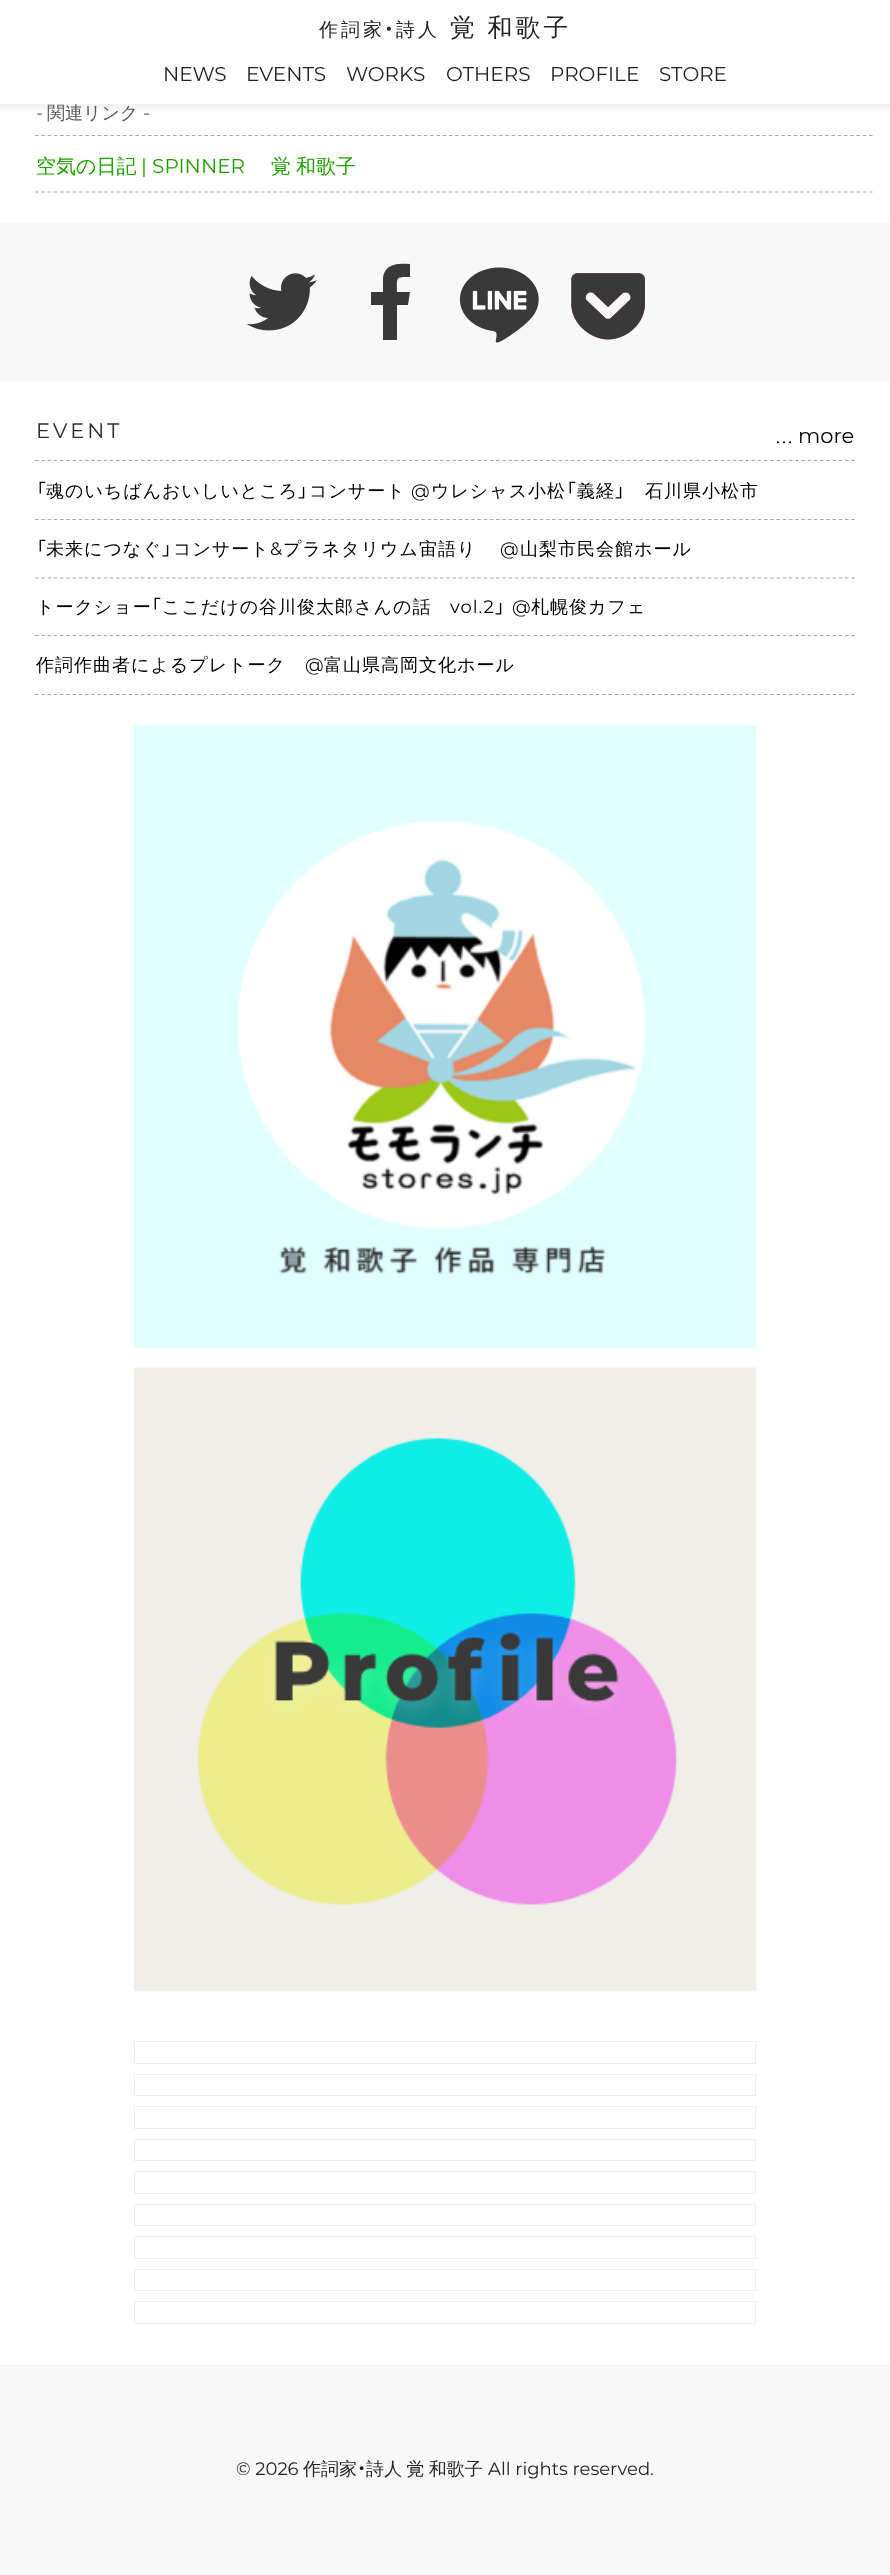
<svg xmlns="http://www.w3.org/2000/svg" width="890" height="2575">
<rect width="100%" height="100%" fill="#fff"/>
<rect x="-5" y="-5" width="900" height="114" fill="#0000000d" filter="blur(2.5px)"/>
<rect width="890" height="104" fill="#fff"/>
<text x="319" y="36" style="font-family:WenQuanYi Zen Hei;font-size:19px;font-weight:500;letter-spacing:3px;fill:#222">作詞家</text>
<text x="384" y="36" style="font-family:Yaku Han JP;font-size:19px;letter-spacing:3px;fill:#222">・</text>
<text x="396" y="36" style="font-family:WenQuanYi Zen Hei;font-size:19px;font-weight:500;letter-spacing:3px;fill:#222">詩人</text>
<text x="450" y="36" word-spacing="-1" style="font-family:WenQuanYi Zen Hei;font-size:25px;font-weight:500;letter-spacing:3px;fill:#222">覚 和歌子</text>
<text x="163" y="81" style="font-family:Montserrat;font-size:20px;fill:#222">NEWS</text>
<text x="246" y="81" style="font-family:Montserrat;font-size:20px;fill:#222">EVENTS</text>
<text x="346" y="81" style="font-family:Montserrat;font-size:20px;fill:#222">WORKS</text>
<text x="446" y="81" style="font-family:Montserrat;font-size:20px;fill:#222">OTHERS</text>
<text x="550" y="81" style="font-family:Montserrat;font-size:20px;fill:#222">PROFILE</text>
<text x="659" y="81" style="font-family:Montserrat;font-size:20px;fill:#222">STORE</text>
<path d="M35 135.5h837.5" fill="none" stroke="#aaa" stroke-width="1.2" stroke-dasharray="3.75 2.52"/>
<text x="36" y="119" style="font-family:Montserrat;font-size:18px;fill:#555">-</text>
<text x="47" y="119" style="font-family:WenQuanYi Zen Hei;font-size:18px;font-weight:500;fill:#555">関連リンク</text>
<text x="143" y="119" style="font-family:Montserrat;font-size:18px;fill:#555">-</text>
<path d="M35 192h837.5" fill="none" stroke="#aaa" stroke-width="1.2" stroke-dasharray="3.75 2.52"/>
<text x="36" y="173" style="font-family:WenQuanYi Zen Hei;font-size:20px;font-weight:500;fill:#1fa000">空気の日記</text>
<text x="141" y="173" style="font-family:Montserrat;font-size:20px;fill:#1fa000">| SPINNER</text>
<text x="271" y="173" style="font-family:WenQuanYi Zen Hei;font-size:20px;font-weight:500;fill:#1fa000">覚</text>
<text x="296" y="173" style="font-family:WenQuanYi Zen Hei;font-size:20px;font-weight:500;fill:#1fa000">和歌子</text>
<rect y="223" width="890" height="158" fill="#f8f8f8"/>
<image x="247" y="273" width="70" height="58" href="media/1.png"/>
<path d="M397 340v-35h11l2-13h-13c0-15-2-15 13-15v-13c-11-1-25-1-27 14v14h-12v13h12v35z" fill="#393939"/>
<image x="459" y="267" width="80" height="76" href="media/2.png"/>
<image x="571" y="273" width="74" height="67" href="media/3.png"/>
<text x="36" y="438" style="font-family:Montserrat;font-size:21px;letter-spacing:3px;fill:#332732">EVENT</text>
<text x="775" y="443" style="font-family:Liberation Serif;font-size:18px;fill:#000">…</text>
<text x="798" y="443" style="font-family:Montserrat;font-size:21px;fill:#000">more</text>
<path d="M35 460.5h820" fill="none" stroke="#aaa" stroke-width="1.2" stroke-dasharray="3.75 2.48"/>
<path d="M35 519.5h820" fill="none" stroke="#aaa" stroke-width="1.2" stroke-dasharray="3.75 2.48"/>
<text x="36" y="497" style="font-family:Yaku Han JP;font-size:18px;letter-spacing:1px;fill:#000">「</text>
<text x="46" y="497" style="font-family:WenQuanYi Zen Hei;font-size:18px;font-weight:500;letter-spacing:1px;fill:#000">魂のいちばんおいしいところ</text>
<text x="298" y="497" style="font-family:Yaku Han JP;font-size:18px;letter-spacing:1px;fill:#000">」</text>
<text x="309" y="497" style="font-family:WenQuanYi Zen Hei;font-size:18px;font-weight:500;letter-spacing:1px;fill:#000">コンサート</text>
<text x="411" y="497" style="font-family:Montserrat;font-size:18px;letter-spacing:1px;fill:#000">@</text>
<text x="431" y="497" style="font-family:WenQuanYi Zen Hei;font-size:18px;font-weight:500;letter-spacing:1px;fill:#000">ウレシャス小松</text>
<text x="566" y="497" style="font-family:Yaku Han JP;font-size:18px;letter-spacing:1px;fill:#000">「</text>
<text x="577" y="497" style="font-family:WenQuanYi Zen Hei;font-size:18px;font-weight:500;letter-spacing:1px;fill:#000">義経</text>
<text x="615" y="497" style="font-family:Yaku Han JP;font-size:18px;letter-spacing:1px;fill:#000">」</text>
<text x="645" y="497" style="font-family:WenQuanYi Zen Hei;font-size:18px;font-weight:500;letter-spacing:1px;fill:#000">石川県小松市</text>
<path d="M35 578h820" fill="none" stroke="#aaa" stroke-width="1.2" stroke-dasharray="3.75 2.48"/>
<text x="36" y="555" style="font-family:Yaku Han JP;font-size:18px;letter-spacing:1px;fill:#000">「</text>
<text x="46" y="555" style="font-family:WenQuanYi Zen Hei;font-size:18px;font-weight:500;letter-spacing:1px;fill:#000">未来につなぐ</text>
<text x="162" y="555" style="font-family:Yaku Han JP;font-size:18px;letter-spacing:1px;fill:#000">」</text>
<text x="173" y="555" style="font-family:WenQuanYi Zen Hei;font-size:18px;font-weight:500;letter-spacing:1px;fill:#000">コンサート</text>
<text x="270" y="555" style="font-family:Montserrat;font-size:18px;letter-spacing:1px;fill:#000">&amp;</text>
<text x="283" y="555" style="font-family:WenQuanYi Zen Hei;font-size:18px;font-weight:500;letter-spacing:1px;fill:#000">プラネタリウム宙語り</text>
<text x="500" y="555" style="font-family:Montserrat;font-size:18px;letter-spacing:1px;fill:#000">@</text>
<text x="520" y="555" style="font-family:WenQuanYi Zen Hei;font-size:18px;font-weight:500;letter-spacing:1px;fill:#000">山梨市民会館ホール</text>
<path d="M35 635.5h820" fill="none" stroke="#aaa" stroke-width="1.2" stroke-dasharray="3.75 2.48"/>
<text x="36" y="613" style="font-family:WenQuanYi Zen Hei;font-size:18px;font-weight:500;letter-spacing:1px;fill:#000">トークショー</text>
<text x="151" y="613" style="font-family:Yaku Han JP;font-size:18px;letter-spacing:1px;fill:#000">「</text>
<text x="162" y="613" style="font-family:WenQuanYi Zen Hei;font-size:18px;font-weight:500;letter-spacing:1px;fill:#000">ここだけの谷川俊太郎さんの話</text>
<text x="450" y="613" style="font-family:Montserrat;font-size:18px;letter-spacing:1px;fill:#000">vol.2</text>
<text x="495" y="613" style="font-family:Yaku Han JP;font-size:18px;letter-spacing:1px;fill:#000">」</text>
<text x="512" y="613" style="font-family:Montserrat;font-size:18px;letter-spacing:1px;fill:#000">@</text>
<text x="531" y="613" style="font-family:WenQuanYi Zen Hei;font-size:18px;font-weight:500;letter-spacing:1px;fill:#000">札幌俊カフェ</text>
<path d="M35 694.5h820" fill="none" stroke="#aaa" stroke-width="1.2" stroke-dasharray="3.75 2.48"/>
<text x="36" y="671" style="font-family:WenQuanYi Zen Hei;font-size:18px;font-weight:500;letter-spacing:1px;fill:#000">作詞作曲者によるプレトーク</text>
<text x="305" y="671" style="font-family:Montserrat;font-size:18px;letter-spacing:1px;fill:#000">@</text>
<text x="324" y="671" style="font-family:WenQuanYi Zen Hei;font-size:18px;font-weight:500;letter-spacing:1px;fill:#000">富山県高岡文化ホール</text>
<image x="133" y="725" width="624" height="623" href="media/4.png"/>
<image x="133" y="1367" width="624" height="625" href="media/5.png"/>
<rect x="134.5" y="2041.5" width="621" height="22" fill="none" stroke="#eee"/>
<rect x="134.5" y="2074.5" width="621" height="21" fill="none" stroke="#eee"/>
<rect x="134.5" y="2106.5" width="621" height="22" fill="none" stroke="#eee"/>
<rect x="134.5" y="2139.5" width="621" height="21" fill="none" stroke="#eee"/>
<rect x="134.5" y="2171.5" width="621" height="22" fill="none" stroke="#eee"/>
<rect x="134.5" y="2204.5" width="621" height="21" fill="none" stroke="#eee"/>
<rect x="134.5" y="2236.5" width="621" height="22" fill="none" stroke="#eee"/>
<rect x="134.5" y="2269.5" width="621" height="21" fill="none" stroke="#eee"/>
<rect x="134.5" y="2301.5" width="621" height="22" fill="none" stroke="#eee"/>
<rect y="2364" width="890" height="211" fill="#f8f8f8"/>
<text x="236" y="2475" style="font-family:Montserrat;font-size:18px;fill:#222">© 2026</text>
<text x="303" y="2475" style="font-family:WenQuanYi Zen Hei;font-size:18px;font-weight:500;fill:#222">作詞家</text>
<text x="357" y="2475" style="font-family:Yaku Han JP;font-size:18px;fill:#222">・</text>
<text x="366" y="2475" word-spacing="-1" style="font-family:WenQuanYi Zen Hei;font-size:18px;font-weight:500;fill:#222">詩人 覚 和歌子</text>
<text x="488" y="2475" style="font-family:Montserrat;font-size:18px;fill:#222">All rights reserved.</text>
</svg>
